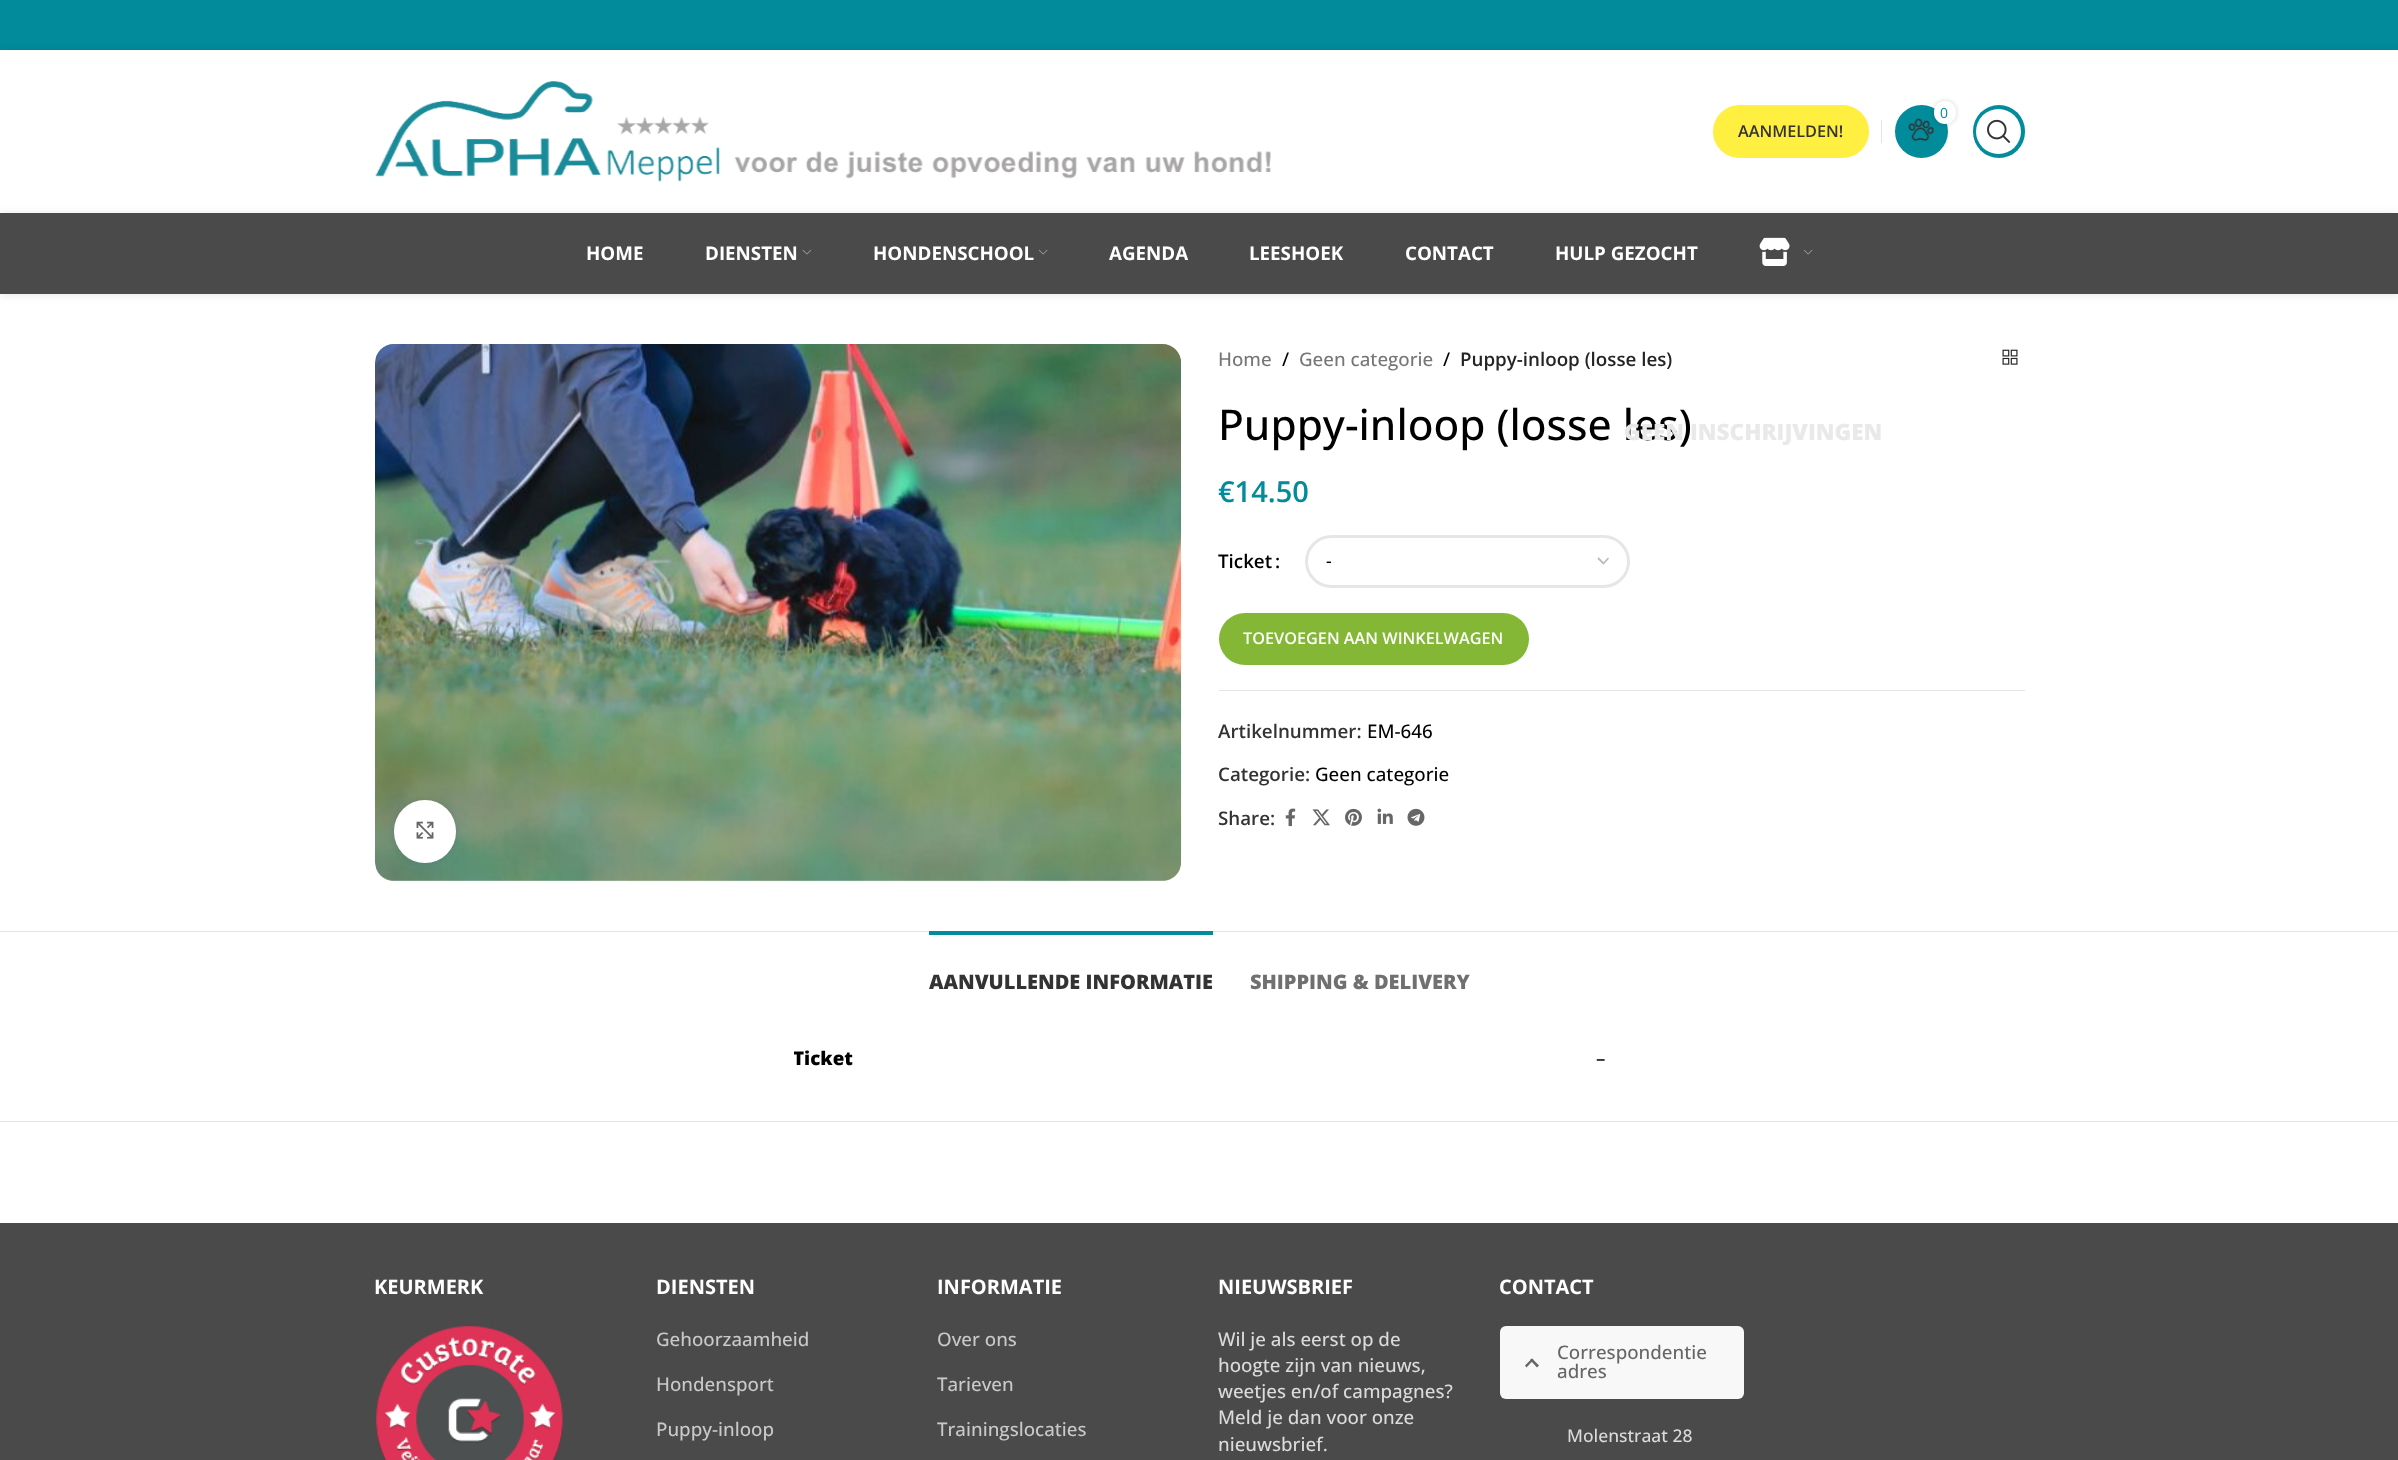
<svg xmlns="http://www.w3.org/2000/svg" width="2398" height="1460">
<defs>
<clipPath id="clip1"><rect x="794" y="1045" width="812" height="26"/></clipPath>
</defs>
<rect width="100%" height="100%" fill="#fff"/>
<rect width="2398" height="50" fill="#028b9b"/>
<rect y="51" width="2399" height="163" fill="#0000001a" filter="blur(5px)"/>
<rect y="50" width="2398" height="163" fill="#fff"/>
<rect y="214" width="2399" height="81" fill="#0000001a" filter="blur(5px)"/>
<rect y="213" width="2398" height="81" fill="#4a4a4a"/>
<text x="586" y="260" style="font-family:Open Sans;font-size:18.75px;font-weight:bold;fill:#fff">HOME</text>
<text x="705" y="260" style="font-family:Open Sans;font-size:18.75px;font-weight:bold;fill:#fff">DIENSTEN</text>
<image x="802" y="249" width="10" height="6" href="media/1.png"/>
<text x="873" y="260" style="font-family:Open Sans;font-size:18.75px;font-weight:bold;fill:#fff">HONDENSCHOOL</text>
<image x="1038" y="249" width="10" height="6" href="media/2.png"/>
<text x="1109" y="260" style="font-family:Open Sans;font-size:18.75px;font-weight:bold;fill:#fff">AGENDA</text>
<text x="1249" y="260" style="font-family:Open Sans;font-size:18.75px;font-weight:bold;fill:#fff">LEESHOEK</text>
<text x="1405" y="260" style="font-family:Open Sans;font-size:18.75px;font-weight:bold;fill:#fff">CONTACT</text>
<text x="1555" y="260" style="font-family:Open Sans;font-size:18.75px;font-weight:bold;fill:#fff">HULP GEZOCHT</text>
<image x="1759" y="237" width="31" height="29" href="media/3.png"/>
<image x="1803" y="249" width="10" height="6" href="media/2.png"/>
<image x="375" y="81" width="896" height="101" href="media/4.png"/>
<circle cx="1921.5" cy="131.5" r="26.5" fill="#028b9b"/>
<image x="1908" y="118" width="26" height="23" href="media/5.png"/>
<rect x="1934" y="101" width="22" height="23" rx="11" fill="#0000002b" filter="blur(2.5px)"/>
<rect x="1934" y="101" width="22" height="23" rx="11" fill="#fff"/>
<text x="1940" y="118" style="font-family:Open Sans;font-size:14px;fill:#028b9b">0</text>
<text x="1218" y="440" style="font-family:Open Sans;font-size:42.5px;font-weight:500;fill:#000">Puppy-inloop (losse les)</text>
<text x="1624" y="440" style="font-family:Open Sans;font-size:22.5px;font-weight:800;fill:#e9e9e9">GEEN INSCHRIJVINGEN</text>
<rect x="1973" y="105" width="52" height="53" rx="26" fill="#028b9b"/>
<circle cx="1998.5" cy="131.5" r="22.5" fill="#fff"/>
<image x="1987" y="119" width="24" height="24" href="media/6.png"/>
<rect x="1713" y="105" width="156" height="53" rx="26.5" fill="#ffef40"/>
<text x="1738" y="137" style="font-family:Open Sans;font-size:16.25px;font-weight:600;fill:#333">AANMELDEN!</text>
<rect x="1881" y="120" width="1" height="23" fill="#e4e4e4"/>
<image x="375" y="344" width="807" height="538" href="media/7.png"/>
<rect x="394" y="800" width="62" height="63" rx="31" fill="#00000014" filter="blur(3px)"/>
<rect x="394" y="800" width="62" height="63" rx="31" fill="#fff"/>
<image x="416" y="821" width="18" height="18" href="media/8.png"/>
<text x="1218" y="366" style="font-family:Open Sans;font-size:18.75px;font-weight:500;fill:#767676">Home</text>
<text x="1282" y="366" style="font-family:Open Sans;font-size:18.75px;font-weight:500;fill:#000">/</text>
<text x="1299" y="366" style="font-family:Open Sans;font-size:18.75px;font-weight:500;fill:#767676">Geen categorie</text>
<text x="1443" y="366" style="font-family:Open Sans;font-size:18.75px;font-weight:500;fill:#000">/</text>
<text x="1460" y="366" style="font-family:Open Sans;font-size:18.75px;font-weight:600;fill:#242424">Puppy-inloop (losse les)</text>
<image x="2002" y="349" width="16" height="16" href="media/9.png"/>
<text x="1218" y="502" style="font-family:Open Sans;font-size:29px;font-weight:600;fill:#028b9b">€14.50</text>
<text x="1218" y="568" style="font-family:Open Sans;font-size:18.75px;font-weight:600;fill:#000">Ticket</text>
<text x="1275" y="568" style="font-family:Open Sans;font-size:18.75px;font-weight:600;fill:#000">:</text>
<path d="M1598 558l5.5 5.5l5-5.5" fill="none" stroke="#bbb" stroke-width="1.8"/>
<rect x="1306.5" y="536.5" width="322" height="50" rx="25" fill="none" stroke="#e6e6e6" stroke-width="3"/>
<text x="1326" y="567" style="font-family:Open Sans;font-size:17.5px;font-weight:500;fill:#000">-</text>
<rect x="1219" y="613" width="310" height="52" rx="26" fill="#83b735"/>
<text x="1243" y="644" style="font-family:Open Sans;font-size:16.25px;font-weight:600;fill:#fff">TOEVOEGEN AAN WINKELWAGEN</text>
<rect x="1219" y="690" width="806" height="1" fill="#e4e4e4"/>
<text x="1218" y="738" style="font-family:Open Sans;font-size:18.75px;font-weight:600;fill:#333">Artikelnummer:</text>
<text x="1367" y="738" style="font-family:Open Sans;font-size:18.75px;font-weight:500;fill:#000">EM-646</text>
<text x="1218" y="781" style="font-family:Open Sans;font-size:18.75px;font-weight:600;fill:#333">Categorie:</text>
<text x="1315" y="781" style="font-family:Open Sans;font-size:18.75px;font-weight:500;fill:#000">Geen categorie</text>
<text x="1218" y="825" style="font-family:Open Sans;font-size:18.75px;font-weight:600;fill:#333">Share:</text>
<image x="1285" y="808" width="11" height="19" href="media/10.png"/>
<image x="1312" y="809" width="18" height="17" href="media/11.png"/>
<image x="1345" y="808" width="17" height="18" href="media/12.png"/>
<image x="1377" y="808" width="16" height="16" href="media/13.png"/>
<image x="1407" y="808" width="18" height="18" href="media/14.png"/>
<rect y="931" width="2398" height="1" fill="#e4e4e4"/>
<rect y="1121" width="2398" height="1" fill="#e4e4e4"/>
<rect x="929" y="931" width="284" height="4" fill="#028b9b"/>
<text x="929" y="989" style="font-family:Open Sans;font-size:20px;font-weight:800;fill:#333">AANVULLENDE INFORMATIE</text>
<text x="1250" y="989" style="font-family:Open Sans;font-size:20px;font-weight:800;fill:#707070">SHIPPING &amp; DELIVERY</text>
<g clip-path="url(#clip1)">
<text x="793" y="1065" style="font-family:Open Sans;font-size:18.75px;font-weight:800;fill:#000">Ticket</text>
</g>
<text x="1596" y="1065" style="font-family:Open Sans;font-size:18.75px;font-weight:500;fill:#000">–</text>
<rect y="1223" width="2398" height="237" fill="#4a4a4a"/>
<text x="374" y="1294" style="font-family:Open Sans;font-size:20px;font-weight:bold;fill:#fff">KEURMERK</text>
<image x="376" y="1326" width="187" height="134" href="media/15.png"/>
<text x="656" y="1294" style="font-family:Open Sans;font-size:20px;font-weight:bold;fill:#fff">DIENSTEN</text>
<text x="656" y="1346" style="font-family:Open Sans;font-size:18.75px;font-weight:500;fill:#c9c9c9">Gehoorzaamheid</text>
<text x="656" y="1391" style="font-family:Open Sans;font-size:18.75px;font-weight:500;fill:#c9c9c9">Hondensport</text>
<text x="656" y="1436" style="font-family:Open Sans;font-size:18.75px;font-weight:500;fill:#c9c9c9">Puppy-inloop</text>
<text x="937" y="1294" style="font-family:Open Sans;font-size:20px;font-weight:bold;fill:#fff">INFORMATIE</text>
<text x="937" y="1346" style="font-family:Open Sans;font-size:18.75px;font-weight:500;fill:#c9c9c9">Over ons</text>
<text x="937" y="1391" style="font-family:Open Sans;font-size:18.75px;font-weight:500;fill:#c9c9c9">Tarieven</text>
<text x="937" y="1436" style="font-family:Open Sans;font-size:18.75px;font-weight:500;fill:#c9c9c9">Trainingslocaties</text>
<text x="1218" y="1294" style="font-family:Open Sans;font-size:20px;font-weight:bold;fill:#fff">NIEUWSBRIEF</text>
<text x="1218" y="1346" style="font-family:Open Sans;font-size:18.75px;font-weight:500;fill:#dbdbdb">Wil je als eerst op de</text>
<text x="1218" y="1372" style="font-family:Open Sans;font-size:18.75px;font-weight:500;fill:#dbdbdb">hoogte zijn van nieuws,</text>
<text x="1218" y="1398" style="font-family:Open Sans;font-size:18.75px;font-weight:500;fill:#dbdbdb">weetjes en/of campagnes?</text>
<text x="1218" y="1424" style="font-family:Open Sans;font-size:18.75px;font-weight:500;fill:#dbdbdb">Meld je dan voor onze</text>
<text x="1218" y="1451" style="font-family:Open Sans;font-size:18.75px;font-weight:500;fill:#dbdbdb">nieuwsbrief.</text>
<text x="1499" y="1294" style="font-family:Open Sans;font-size:20px;font-weight:bold;fill:#fff">CONTACT</text>
<rect x="1500" y="1326" width="244" height="73" rx="6" fill="#f8f8f8"/>
<path d="M1526.5 1367.5l-1.5-2l7-7l1.5 1.5z" fill="#666"/>
<path d="M1537 1367.5l-7-7.5l2-1.5l7 7z" fill="#666"/>
<text x="1557" y="1359" style="font-family:Open Sans;font-size:18.75px;font-weight:500;fill:#666">Correspondentie</text>
<text x="1557" y="1378" style="font-family:Open Sans;font-size:18.75px;font-weight:500;fill:#666">adres</text>
<text x="1567" y="1442" style="font-family:Open Sans;font-size:17.5px;font-weight:500;fill:#dbdbdb">Molenstraat 28</text>
</svg>
